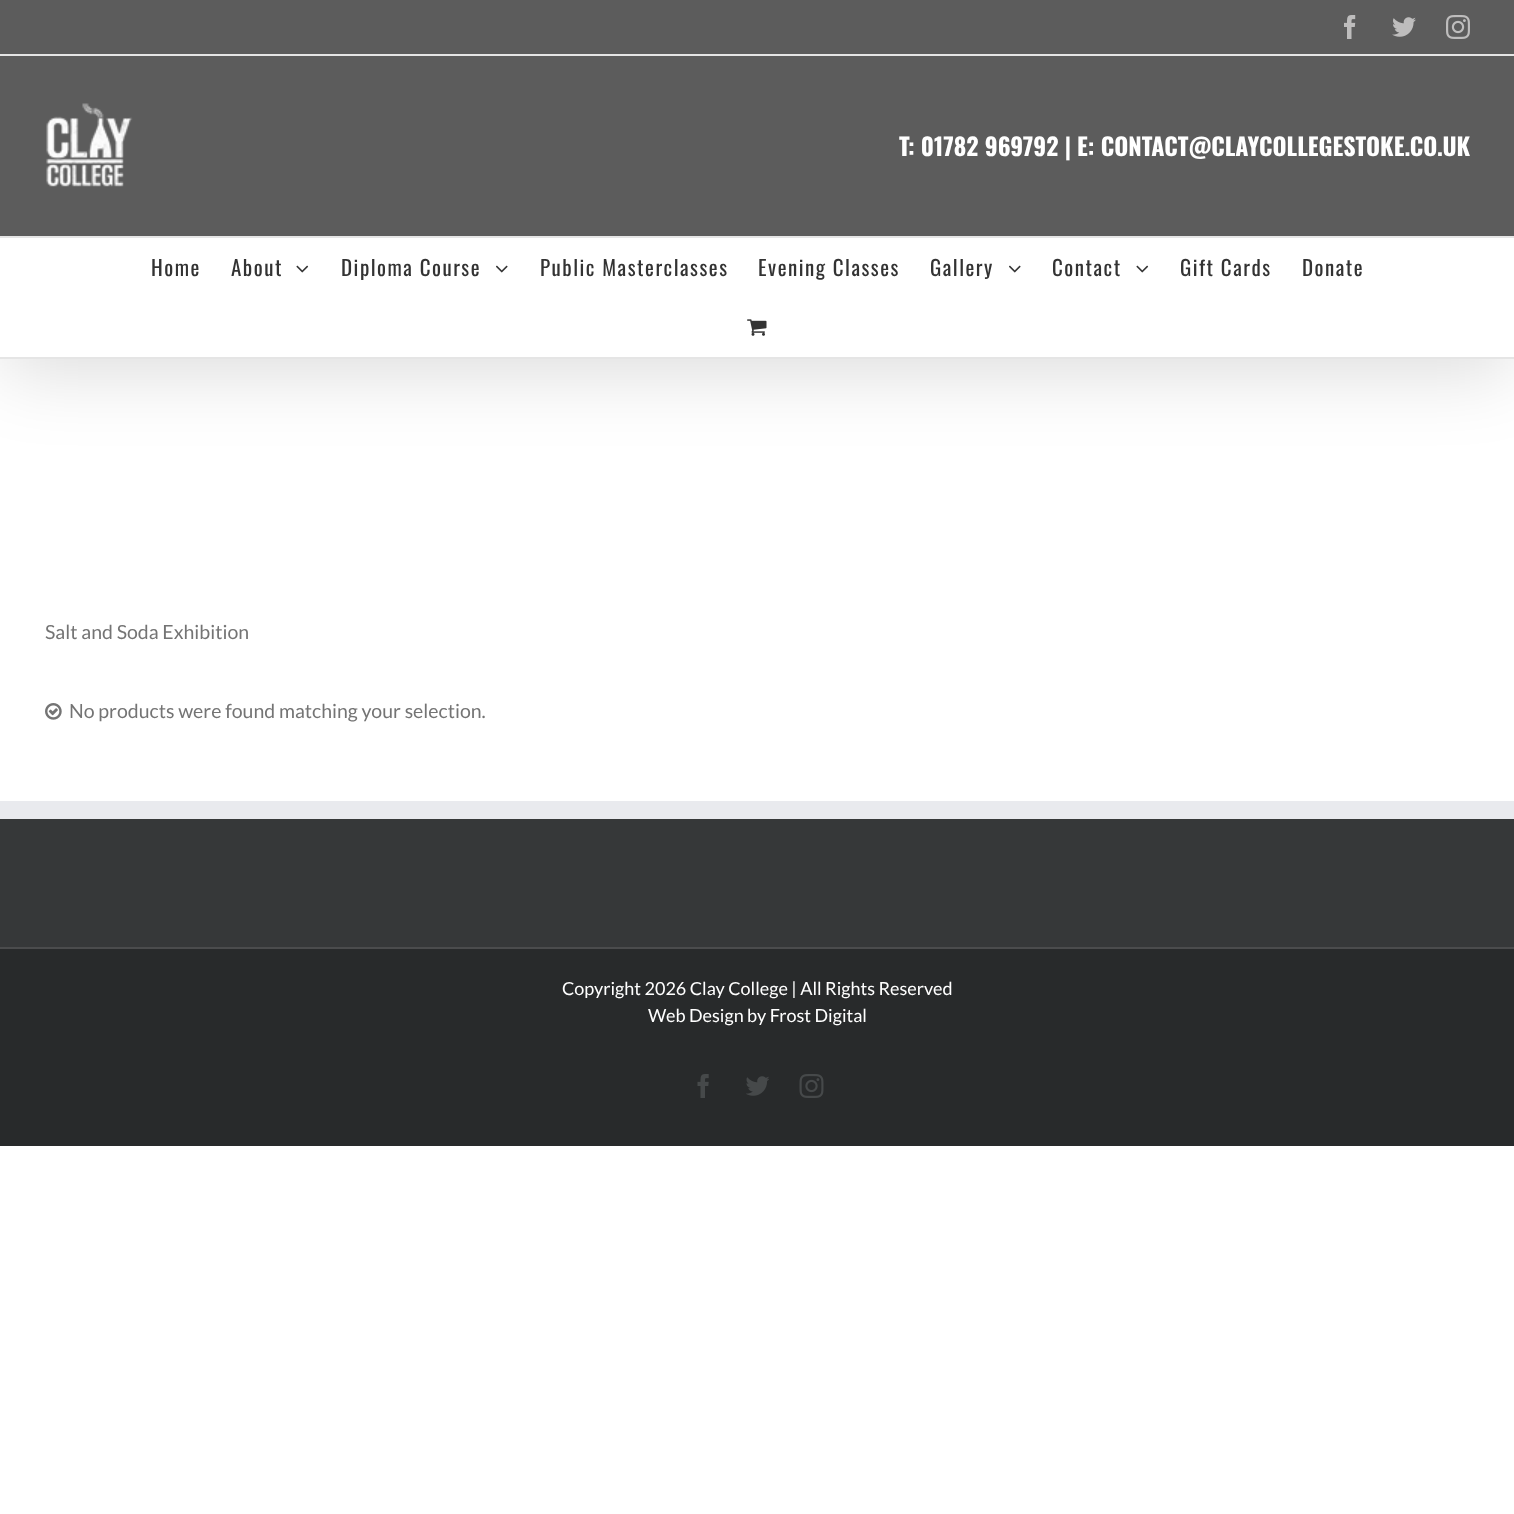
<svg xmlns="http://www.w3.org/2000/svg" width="1514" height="1514">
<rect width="100%" height="100%" fill="#fff"/>
<rect x="3" y="18" width="1509" height="353" fill="#00000024" filter="blur(37.5px)"/>
<rect width="1514" height="54" fill="#5c5c5c"/>
<rect y="54" width="1514" height="2" fill="#e5e5e5"/>
<image x="1344" y="15" width="12" height="24" href="media/1.png"/>
<image x="1392" y="17" width="24" height="20" href="media/2.png"/>
<image x="1446" y="15" width="24" height="24" href="media/3.png"/>
<rect y="56" width="1514" height="180" fill="#5c5c5c"/>
<rect y="236" width="1514" height="2" fill="#e5e5e5"/>
<image x="46" y="103" width="87" height="84" href="media/4.png"/>
<text x="899" y="156" style="font-family:Oswald;font-size:24px;font-weight:bold;fill:#fff">T: 01782 969792 | E: CONTACT@CLAYCOLLEGESTOKE.CO.UK</text>
<rect y="238" width="1514" height="119" fill="#fff"/>
<rect y="357" width="1514" height="2" fill="#e5e5e5"/>
<text x="151" y="276" style="font-family:Oswald;font-size:21px;letter-spacing:1.5px;fill:#333">Home</text>
<text x="231" y="276" style="font-family:Oswald;font-size:21px;letter-spacing:1.5px;fill:#333">About</text>
<image x="296" y="265" width="13" height="8" href="media/5.png"/>
<text x="341" y="276" style="font-family:Oswald;font-size:21px;letter-spacing:1.5px;fill:#333">Diploma Course</text>
<image x="496" y="265" width="12" height="8" href="media/6.png"/>
<text x="540" y="276" style="font-family:Oswald;font-size:21px;letter-spacing:1.5px;fill:#333">Public Masterclasses</text>
<text x="758" y="276" style="font-family:Oswald;font-size:21px;letter-spacing:1.5px;fill:#333">Evening Classes</text>
<text x="930" y="276" style="font-family:Oswald;font-size:21px;letter-spacing:1.5px;fill:#333">Gallery</text>
<image x="1009" y="265" width="12" height="8" href="media/6.png"/>
<text x="1052" y="276" style="font-family:Oswald;font-size:21px;letter-spacing:1.5px;fill:#333">Contact</text>
<image x="1136" y="265" width="13" height="8" href="media/5.png"/>
<text x="1180" y="276" style="font-family:Oswald;font-size:21px;letter-spacing:1.5px;fill:#333">Gift Cards</text>
<text x="1302" y="276" style="font-family:Oswald;font-size:21px;letter-spacing:1.5px;fill:#333">Donate</text>
<image x="747" y="319" width="20" height="17" href="media/7.png"/>
<text x="45" y="639" style="font-family:Lato;font-size:19.5px;fill:#747474">Salt and Soda Exhibition</text>
<image x="45" y="703" width="17" height="17" href="media/8.png"/>
<text x="69" y="718" style="font-family:Lato;font-size:19.5px;fill:#747474">No products were found matching your selection.</text>
<rect y="819" width="1514" height="128" fill="#363839"/>
<rect y="801" width="1514" height="18" fill="#e9eaee"/>
<rect y="949" width="1514" height="197" fill="#282a2b"/>
<rect y="947" width="1514" height="2" fill="#4b4c4d"/>
<text x="562" y="995" style="font-family:Lato;font-size:18px;fill:#fff">Copyright 2026 Clay College | All Rights Reserved</text>
<text x="648" y="1022" style="font-family:Lato;font-size:18px;fill:#fff">Web Design by Frost Digital</text>
<image x="697" y="1074" width="12" height="24" href="media/9.png"/>
<image x="746" y="1076" width="23" height="20" href="media/10.png"/>
<image x="799" y="1074" width="25" height="24" href="media/11.png"/>
</svg>
